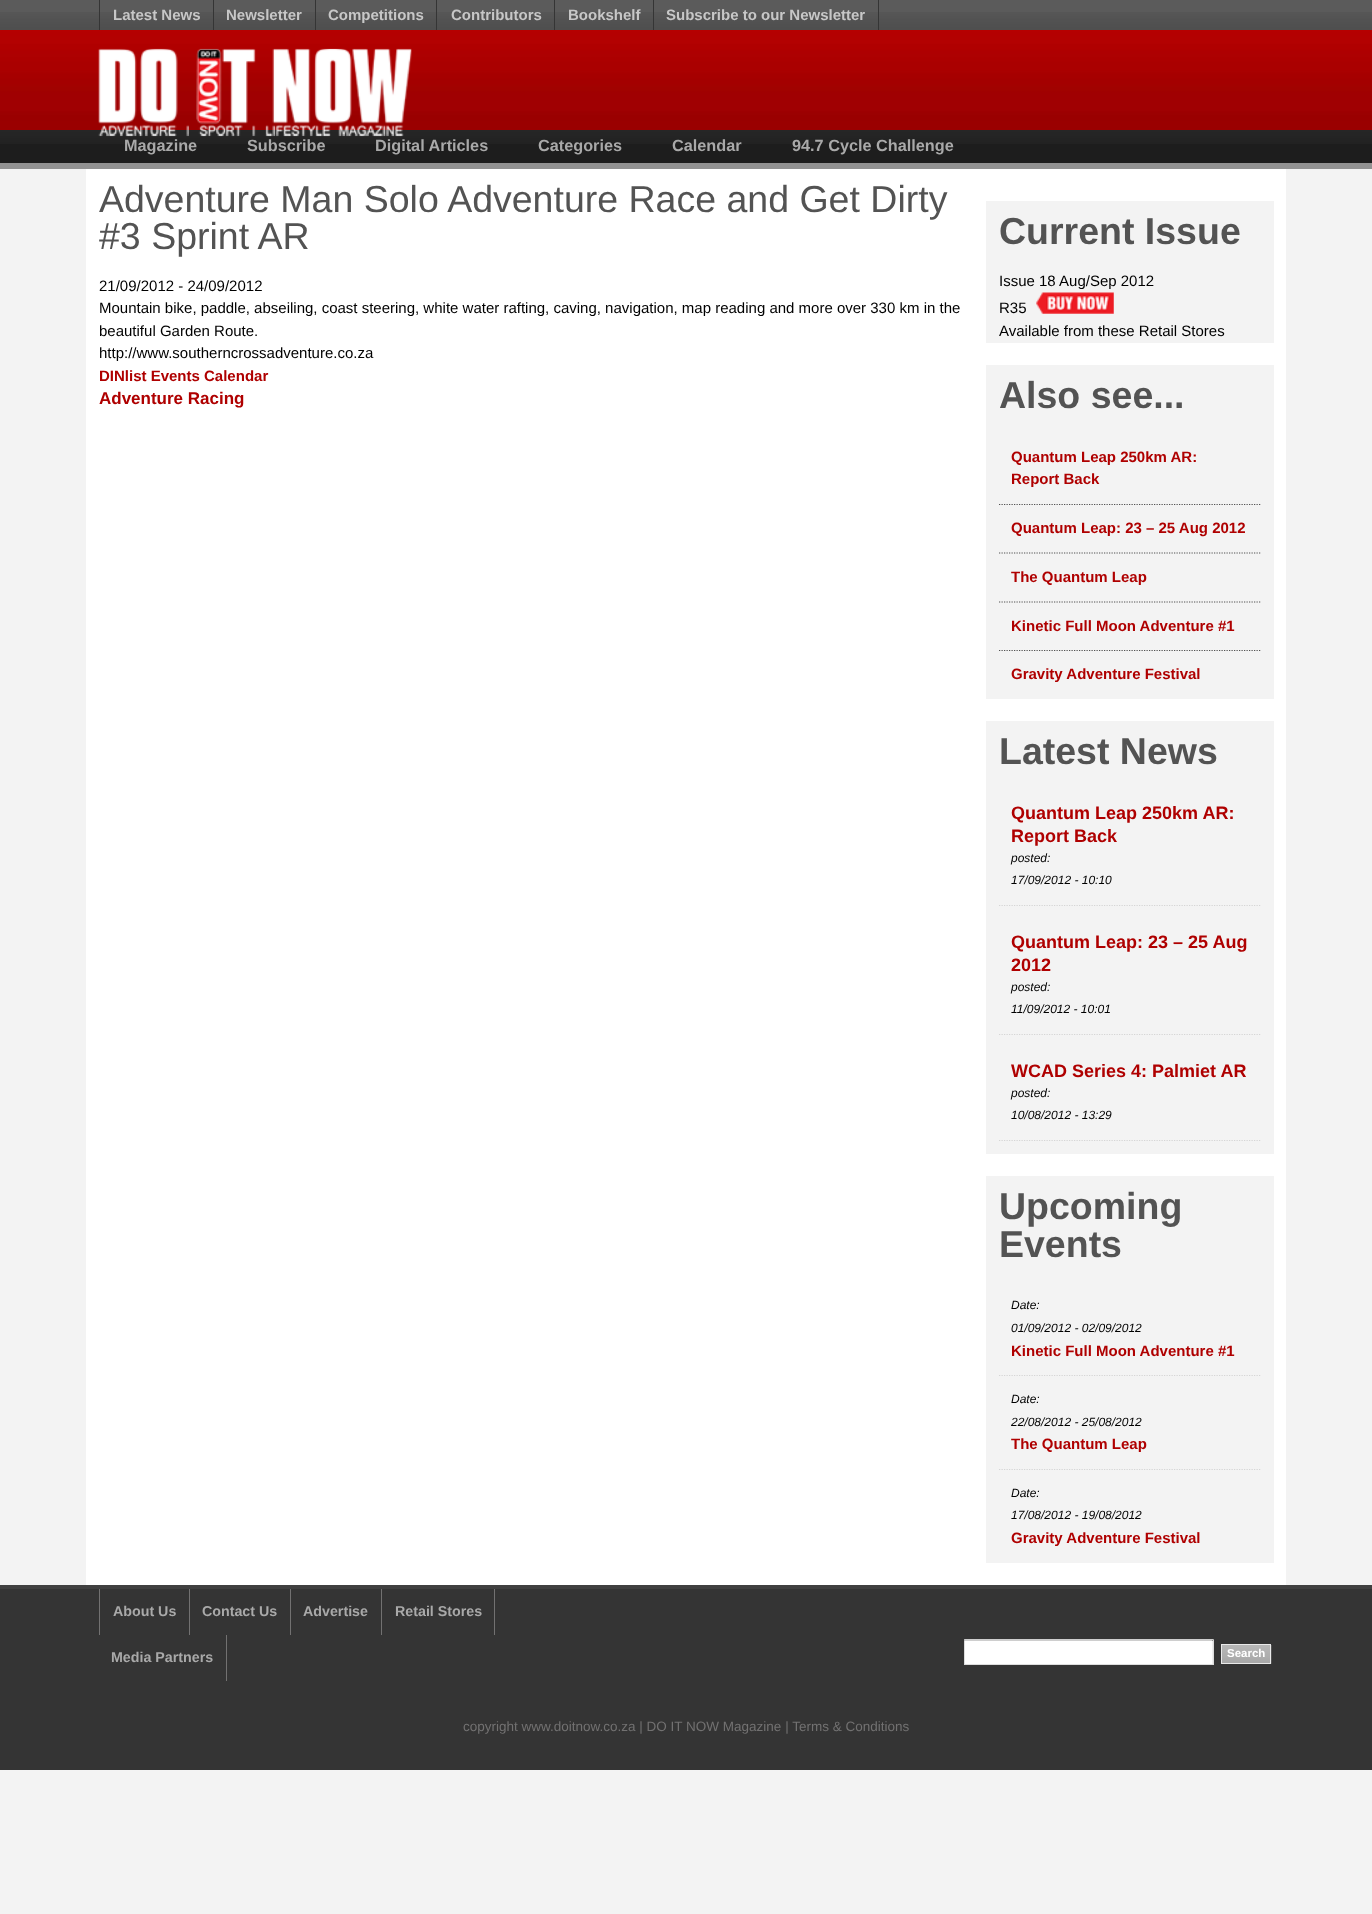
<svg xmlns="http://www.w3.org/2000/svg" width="1372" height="1914">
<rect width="100%" height="100%" fill="#f3f3f3"/>
<rect width="1372" height="12" fill="#5b5b5b"/>
<image x="0" y="12" width="1372" height="18" href="media/1.png"/>
<rect x="99" width="1" height="30" fill="#353535"/>
<text x="113" y="20" style="font-family:Liberation Sans;font-size:15px;font-weight:bold;fill:#c7c7c7">Latest News</text>
<rect x="213" width="1" height="30" fill="#353535"/>
<text x="226" y="20" style="font-family:Liberation Sans;font-size:15px;font-weight:bold;fill:#c7c7c7">Newsletter</text>
<rect x="315" width="1" height="30" fill="#353535"/>
<text x="328" y="20" style="font-family:Liberation Sans;font-size:15px;font-weight:bold;fill:#c7c7c7">Competitions</text>
<rect x="436" width="1" height="30" fill="#353535"/>
<text x="451" y="20" style="font-family:Liberation Sans;font-size:15px;font-weight:bold;fill:#c7c7c7">Contributors</text>
<rect x="554" width="1" height="30" fill="#353535"/>
<text x="568" y="20" style="font-family:Liberation Sans;font-size:15px;font-weight:bold;fill:#c7c7c7">Bookshelf</text>
<rect x="878" width="1" height="30" fill="#353535"/>
<rect x="653" width="1" height="30" fill="#353535"/>
<text x="666" y="20" style="font-family:Liberation Sans;font-size:15px;font-weight:bold;fill:#c7c7c7">Subscribe to our Newsletter</text>
<image x="0" y="30" width="1372" height="100" href="media/2.png"/>
<image x="0" y="130" width="1372" height="14" href="media/4.png"/>
<image x="98" y="48" width="314" height="89" href="media/3.png"/>
<rect y="144" width="1372" height="19" fill="#1d1d1d"/>
<rect y="163" width="1372" height="6" fill="#929292"/>
<text x="124" y="151" style="font-family:Liberation Sans;font-size:16.25px;font-weight:bold;fill:#a9a9a9">Magazine</text>
<text x="247" y="151" style="font-family:Liberation Sans;font-size:16.25px;font-weight:bold;fill:#a9a9a9">Subscribe</text>
<text x="375" y="151" style="font-family:Liberation Sans;font-size:16.25px;font-weight:bold;fill:#a9a9a9">Digital Articles</text>
<text x="538" y="151" style="font-family:Liberation Sans;font-size:16.25px;font-weight:bold;fill:#a9a9a9">Categories</text>
<text x="672" y="151" style="font-family:Liberation Sans;font-size:16.25px;font-weight:bold;fill:#a9a9a9">Calendar</text>
<text x="792" y="151" style="font-family:Liberation Sans;font-size:16.25px;font-weight:bold;fill:#a9a9a9">94.7 Cycle Challenge</text>
<rect x="86" y="169" width="1200" height="1416" fill="#fff"/>
<text x="99" y="212" style="font-family:Liberation Sans;font-size:37.5px;fill:#535353">Adventure Man Solo Adventure Race and Get Dirty</text>
<text x="99" y="249" style="font-family:Liberation Sans;font-size:37.5px;fill:#535353">#3 Sprint AR</text>
<text x="99" y="291" style="font-family:Liberation Sans;font-size:15px;fill:#000">21/09/2012 - 24/09/2012</text>
<text x="99" y="313" style="font-family:Liberation Sans;font-size:15px;fill:#000">Mountain bike, paddle, abseiling, coast steering, white water rafting, caving, navigation, map reading and more over 330 km in the</text>
<text x="99" y="336" style="font-family:Liberation Sans;font-size:15px;fill:#000">beautiful Garden Route.</text>
<text x="99" y="358" style="font-family:Liberation Sans;font-size:15px;fill:#000">http://www.southerncrossadventure.co.za</text>
<text x="99" y="381" style="font-family:Liberation Sans;font-size:15px;font-weight:bold;fill:#af0000">DINlist Events Calendar</text>
<text x="99" y="404" style="font-family:Liberation Sans;font-size:17px;font-weight:bold;fill:#af0000">Adventure Racing</text>
<rect x="986" y="201" width="288" height="142" fill="#f3f3f3"/>
<text x="999" y="244" style="font-family:Liberation Sans;font-size:37.5px;font-weight:bold;fill:#535353">Current Issue</text>
<text x="999" y="286" style="font-family:Liberation Sans;font-size:15px;fill:#000">Issue 18 Aug/Sep 2012</text>
<text x="999" y="313" style="font-family:Liberation Sans;font-size:15px;fill:#000">R35</text>
<image x="1036" y="292" width="78" height="22" href="media/5.png"/>
<text x="999" y="336" style="font-family:Liberation Sans;font-size:15px;fill:#000">Available from these Retail Stores</text>
<rect x="986" y="365" width="288" height="334" fill="#f3f3f3"/>
<text x="999" y="408" style="font-family:Liberation Sans;font-size:37.5px;font-weight:bold;fill:#535353">Also see...</text>
<path d="M999 504.5h262" fill="none" stroke="#535353" stroke-width="1.2" stroke-dasharray="1.25 1.25"/>
<text x="1011" y="462" style="font-family:Liberation Sans;font-size:15px;font-weight:bold;fill:#af0000">Quantum Leap 250km AR:</text>
<text x="1011" y="484" style="font-family:Liberation Sans;font-size:15px;font-weight:bold;fill:#af0000">Report Back</text>
<path d="M999 553h262" fill="none" stroke="#535353" stroke-width="1.2" stroke-dasharray="1.25 1.25"/>
<text x="1011" y="533" style="font-family:Liberation Sans;font-size:15px;font-weight:bold;fill:#af0000">Quantum Leap: 23 – 25 Aug 2012</text>
<path d="M999 602h262" fill="none" stroke="#535353" stroke-width="1.2" stroke-dasharray="1.25 1.25"/>
<text x="1011" y="582" style="font-family:Liberation Sans;font-size:15px;font-weight:bold;fill:#af0000">The Quantum Leap</text>
<path d="M999 650.5h262" fill="none" stroke="#535353" stroke-width="1.2" stroke-dasharray="1.25 1.25"/>
<text x="1011" y="631" style="font-family:Liberation Sans;font-size:15px;font-weight:bold;fill:#af0000">Kinetic Full Moon Adventure #1</text>
<text x="1011" y="679" style="font-family:Liberation Sans;font-size:15px;font-weight:bold;fill:#af0000">Gravity Adventure Festival</text>
<rect x="986" y="721" width="288" height="433" fill="#f3f3f3"/>
<text x="999" y="764" style="font-family:Liberation Sans;font-size:37.5px;font-weight:bold;fill:#535353">Latest News</text>
<path d="M999 905.5h262" fill="none" stroke="#d5d5d5" stroke-width="1.2" stroke-dasharray="1.25 1.25"/>
<text x="1011" y="819" style="font-family:Liberation Sans;font-size:18px;font-weight:bold;fill:#af0000">Quantum Leap 250km AR:</text>
<text x="1011" y="842" style="font-family:Liberation Sans;font-size:18px;font-weight:bold;fill:#af0000">Report Back</text>
<text x="1011" y="862" style="font-family:Liberation Sans;font-size:12px;font-style:italic;fill:#000">posted:</text>
<text x="1011" y="884" style="font-family:Liberation Sans;font-size:12px;font-style:italic;fill:#000">17/09/2012 - 10:10</text>
<path d="M999 1034.5h262" fill="none" stroke="#d5d5d5" stroke-width="1.2" stroke-dasharray="1.25 1.25"/>
<text x="1011" y="948" style="font-family:Liberation Sans;font-size:18px;font-weight:bold;fill:#af0000">Quantum Leap: 23 – 25 Aug</text>
<text x="1011" y="971" style="font-family:Liberation Sans;font-size:18px;font-weight:bold;fill:#af0000">2012</text>
<text x="1011" y="991" style="font-family:Liberation Sans;font-size:12px;font-style:italic;fill:#000">posted:</text>
<text x="1011" y="1013" style="font-family:Liberation Sans;font-size:12px;font-style:italic;fill:#000">11/09/2012 - 10:01</text>
<path d="M999 1140.5h262" fill="none" stroke="#d5d5d5" stroke-width="1.2" stroke-dasharray="1.25 1.25"/>
<text x="1011" y="1077" style="font-family:Liberation Sans;font-size:18px;font-weight:bold;fill:#af0000">WCAD Series 4: Palmiet AR</text>
<text x="1011" y="1097" style="font-family:Liberation Sans;font-size:12px;font-style:italic;fill:#000">posted:</text>
<text x="1011" y="1119" style="font-family:Liberation Sans;font-size:12px;font-style:italic;fill:#000">10/08/2012 - 13:29</text>
<rect x="986" y="1176" width="288" height="387" fill="#f3f3f3"/>
<text x="999" y="1219" style="font-family:Liberation Sans;font-size:37.5px;font-weight:bold;fill:#535353">Upcoming</text>
<text x="999" y="1257" style="font-family:Liberation Sans;font-size:37.5px;font-weight:bold;fill:#535353">Events</text>
<path d="M999 1375.5h262" fill="none" stroke="#d5d5d5" stroke-width="1.2" stroke-dasharray="1.25 1.25"/>
<text x="1011" y="1309" style="font-family:Liberation Sans;font-size:12px;font-style:italic;fill:#000">Date:</text>
<text x="1011" y="1332" style="font-family:Liberation Sans;font-size:12px;font-style:italic;fill:#000">01/09/2012 - 02/09/2012</text>
<text x="1011" y="1356" style="font-family:Liberation Sans;font-size:15px;font-weight:bold;fill:#af0000">Kinetic Full Moon Adventure #1</text>
<path d="M999 1469.5h262" fill="none" stroke="#d5d5d5" stroke-width="1.2" stroke-dasharray="1.25 1.25"/>
<text x="1011" y="1403" style="font-family:Liberation Sans;font-size:12px;font-style:italic;fill:#000">Date:</text>
<text x="1011" y="1426" style="font-family:Liberation Sans;font-size:12px;font-style:italic;fill:#000">22/08/2012 - 25/08/2012</text>
<text x="1011" y="1449" style="font-family:Liberation Sans;font-size:15px;font-weight:bold;fill:#af0000">The Quantum Leap</text>
<text x="1011" y="1497" style="font-family:Liberation Sans;font-size:12px;font-style:italic;fill:#000">Date:</text>
<text x="1011" y="1519" style="font-family:Liberation Sans;font-size:12px;font-style:italic;fill:#000">17/08/2012 - 19/08/2012</text>
<text x="1011" y="1543" style="font-family:Liberation Sans;font-size:15px;font-weight:bold;fill:#af0000">Gravity Adventure Festival</text>
<rect y="1589" width="1372" height="181" fill="#343434"/>
<rect y="1585" width="1372" height="4" fill="#404040"/>
<rect x="189" y="1589" width="1" height="46" fill="#727171"/>
<rect x="99" y="1589" width="1" height="46" fill="#727171"/>
<text x="113" y="1616" style="font-family:Liberation Sans;font-size:14.25px;font-weight:bold;fill:#a9a9a9">About Us</text>
<rect x="290" y="1589" width="1" height="46" fill="#727171"/>
<text x="202" y="1616" style="font-family:Liberation Sans;font-size:14.25px;font-weight:bold;fill:#a9a9a9">Contact Us</text>
<rect x="381" y="1589" width="1" height="46" fill="#727171"/>
<text x="303" y="1616" style="font-family:Liberation Sans;font-size:14.25px;font-weight:bold;fill:#a9a9a9">Advertise</text>
<rect x="494" y="1589" width="1" height="46" fill="#727171"/>
<text x="395" y="1616" style="font-family:Liberation Sans;font-size:14.25px;font-weight:bold;fill:#a9a9a9">Retail Stores</text>
<rect x="226" y="1635" width="1" height="46" fill="#727171"/>
<text x="111" y="1662" style="font-family:Liberation Sans;font-size:14.25px;font-weight:bold;fill:#a9a9a9">Media Partners</text>
<rect x="965" y="1641" width="248" height="23" fill="#fff"/>
<path d="M964 1639h250l-2 2h-247z" fill="#cecece"/>
<path d="M1214 1639v26l-1.5-1v-23z" fill="#ddd"/>
<rect x="964" y="1664" width="250" height="1" fill="#ddd"/>
<path d="M964 1665v-26l1 2v23z" fill="#ddd"/>
<image x="1222" y="1645" width="50" height="19" href="media/6.png"/>
<rect x="1221.5" y="1644.5" width="49" height="19" fill="none" stroke="#e9e9e9"/>
<text x="1227" y="1657" style="font-family:Liberation Sans;font-size:11.5px;font-weight:bold;fill:#fff">Search</text>
<text x="463" y="1731" style="font-family:Liberation Sans;font-size:13.5px;fill:#727171">copyright www.doitnow.co.za | DO IT NOW Magazine | Terms &amp; Conditions</text>
</svg>
